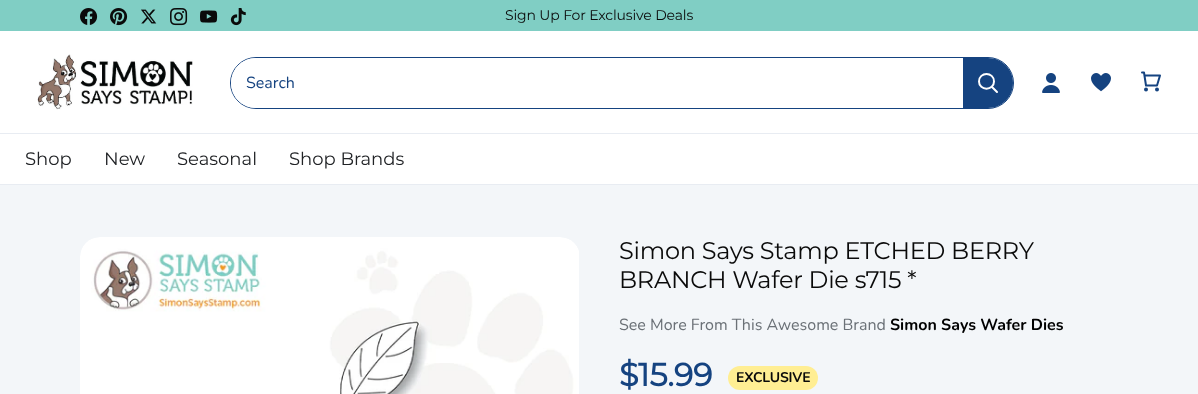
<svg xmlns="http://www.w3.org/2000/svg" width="1198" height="394">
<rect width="100%" height="100%" fill="#fff"/>
<rect width="1198" height="31" fill="#80cec4"/>
<image x="80" y="8" width="18" height="17" href="media/1.png"/>
<image x="110" y="8" width="18" height="18" href="media/2.png"/>
<image x="141" y="9" width="16" height="15" href="media/3.png"/>
<image x="170" y="8" width="18" height="18" href="media/4.png"/>
<image x="200" y="10" width="18" height="13" href="media/5.png"/>
<image x="230" y="8" width="16" height="18" href="media/6.png"/>
<text x="505" y="20" style="font-family:Montserrat;font-size:14px;letter-spacing:-0.15px;fill:#0a0a0a">Sign Up For Exclusive Deals</text>
<rect y="184" width="1198" height="1" fill="#e8ecf2"/>
<rect y="133" width="1198" height="1" fill="#e8ecf2"/>
<image x="37" y="54" width="156" height="56" href="media/7.png"/>
<rect x="230.5" y="57.5" width="783" height="51" rx="25.5" fill="none" stroke="#154380"/>
<path d="M256 58h712v50h-712c-14 0-25-11-25-25c0-14 11-25 25-25z" fill="#fff"/>
<text x="246" y="88" style="font-family:Nunito;font-size:16px;fill:#154380">Search</text>
<path d="M963 58h25c14 0 25 11 25 25c0 14-11 25-25 25h-25z" fill="#154380"/>
<path d="M994 81.5c0 9.5-15 9.5-15 0c0-10 15-10 15 0z" fill="none" stroke="#fff" stroke-width="2"/>
<path d="M992 87l5 5" fill="none" stroke="#fff" stroke-width="2" stroke-linecap="round"/>
<image x="1042" y="73" width="18" height="20" href="media/8.png"/>
<image x="1091" y="73" width="20" height="19" href="media/9.png"/>
<path d="M1142 72.5h2l2 13h11l3-10h-15.5" fill="none" stroke="#154380" stroke-width="2" stroke-linecap="round" stroke-linejoin="round"/>
<circle cx="1146" cy="89.5" r="2" fill="#154380"/>
<circle cx="1157" cy="89.5" r="2" fill="#154380"/>
<text x="25" y="165" style="font-family:Montserrat;font-size:18px;fill:#212326">Shop</text>
<text x="104" y="165" style="font-family:Montserrat;font-size:18px;fill:#212326">New</text>
<text x="177" y="165" style="font-family:Montserrat;font-size:18px;fill:#212326">Seasonal</text>
<text x="289" y="165" style="font-family:Montserrat;font-size:18px;fill:#212326">Shop Brands</text>
<rect y="185" width="1198" height="209" fill="#f3f6f9"/>
<image x="80" y="237" width="499" height="157" href="media/10.png"/>
<text x="619" y="259" style="font-family:Montserrat;font-size:24px;letter-spacing:-0.25px;fill:#0a0a0a">Simon Says Stamp ETCHED BERRY</text>
<text x="619" y="288" style="font-family:Montserrat;font-size:24px;letter-spacing:-0.25px;fill:#0a0a0a">BRANCH Wafer Die s715 *</text>
<text x="619" y="330" style="font-family:Nunito;font-size:16px;fill:#6b7177">See More From This Awesome Brand</text>
<text x="890" y="330" style="font-family:Nunito;font-size:16px;font-weight:bold;fill:#000">Simon Says Wafer Dies</text>
<text x="619" y="386" style="font-family:Montserrat;font-size:32px;font-weight:bold;letter-spacing:-0.25px;fill:#154380">$15.99</text>
<rect x="728" y="366" width="90" height="24" rx="12" fill="#ffee93"/>
<text x="736" y="382" style="font-family:Nunito;font-size:14px;font-weight:bold;letter-spacing:-0.15px;fill:#0a0a0a">EXCLUSIVE</text>
</svg>
